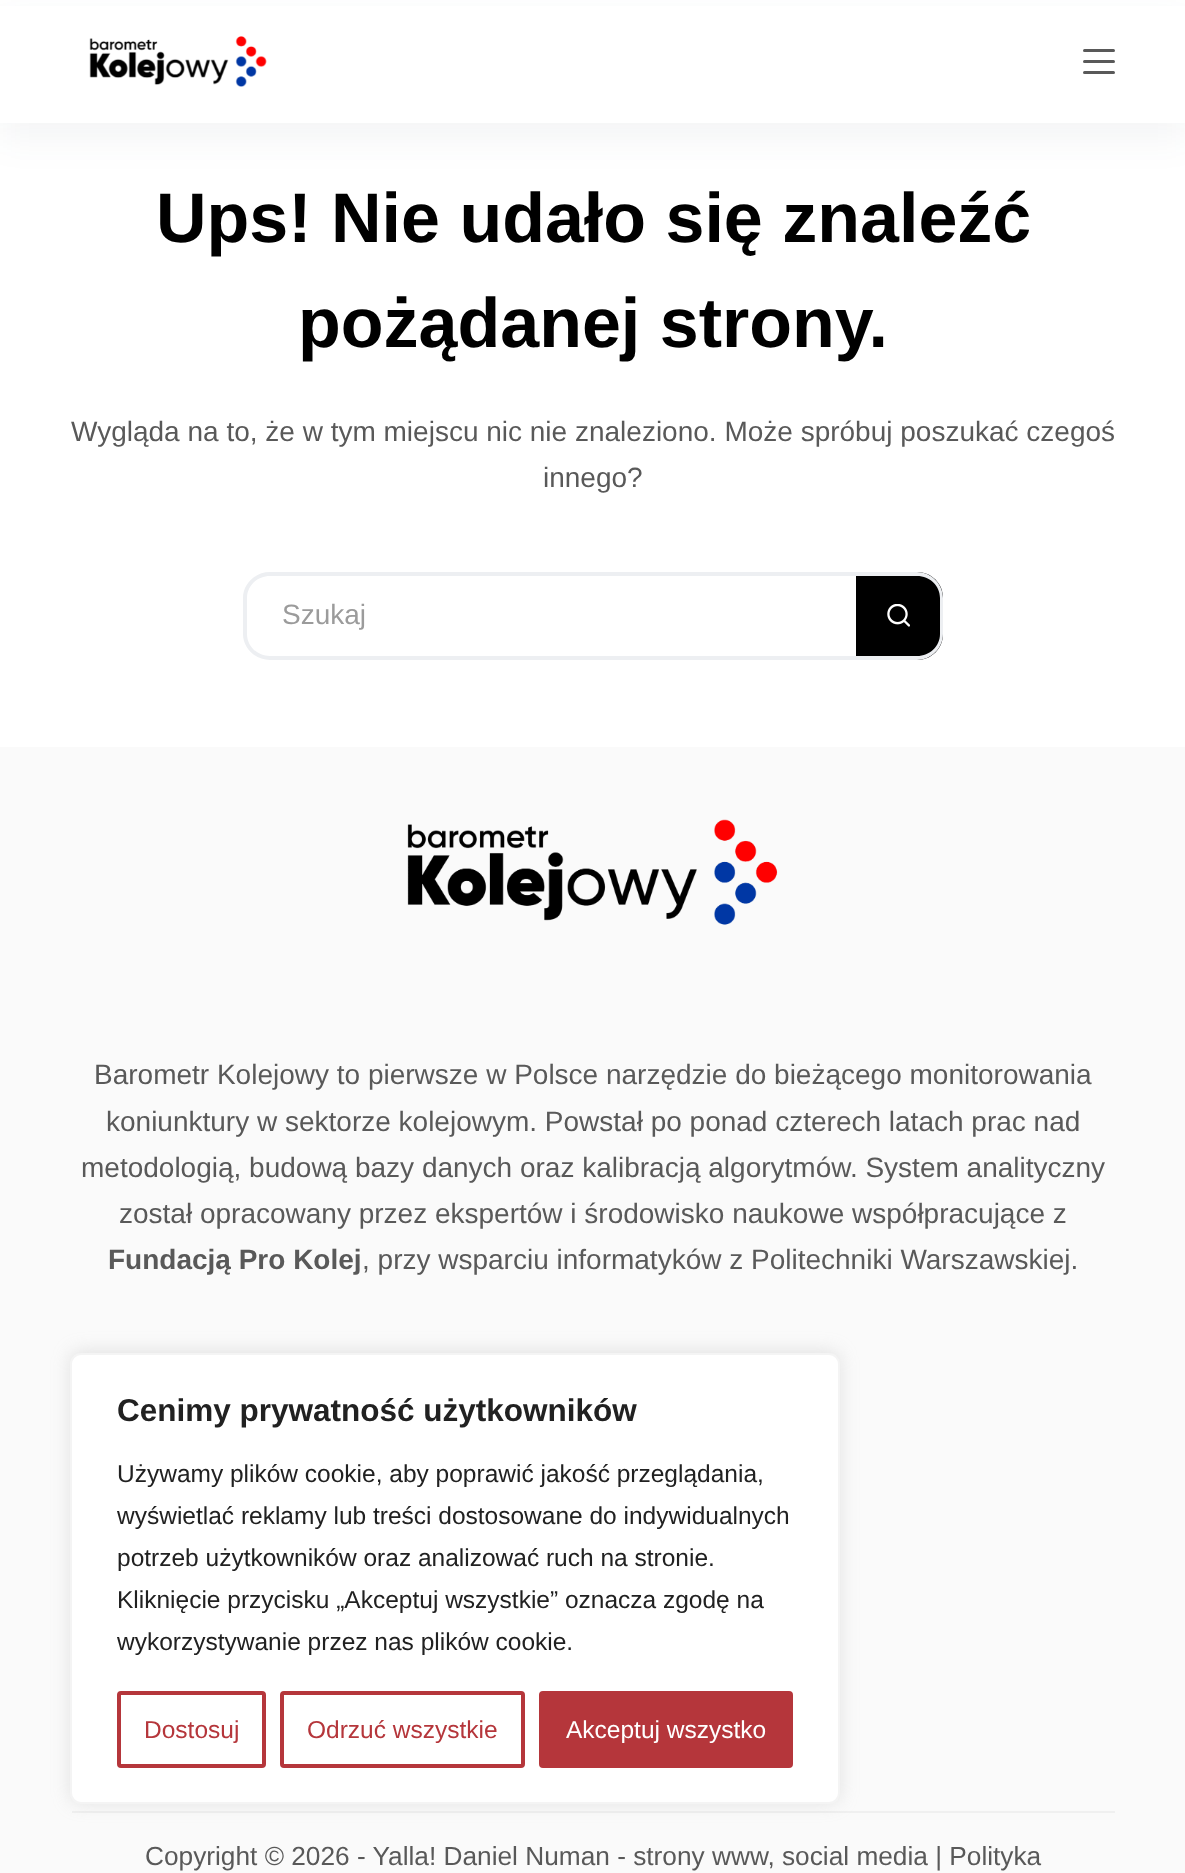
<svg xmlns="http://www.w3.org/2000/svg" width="1185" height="1873">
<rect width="100%" height="100%" fill="#fff"/>
<rect y="18" width="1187" height="122" fill="#2c3e500d" filter="blur(17.5px)"/>
<rect y="6" width="1185" height="117" fill="#fff"/>
<image x="89" y="36" width="178" height="51" href="media/1.png"/>
<rect x="1083" y="49" width="32" height="3" rx="1.5" fill="#595959"/>
<rect x="1083" y="60" width="32" height="3" rx="1.5" fill="#595959"/>
<rect x="1083" y="71" width="32" height="3" rx="1.5" fill="#595959"/>
<text x="156" y="242" style="font-family:Liberation Sans;font-size:70px;font-weight:bold;fill:#000">Ups! Nie udało się znaleźć</text>
<text x="298" y="347" style="font-family:Liberation Sans;font-size:70px;font-weight:bold;fill:#000">pożądanej strony.</text>
<text x="71" y="441" style="font-family:Liberation Sans;font-size:28px;fill:#595959">Wygląda na to, że w tym miejscu nic nie znaleziono. Może spróbuj poszukać czegoś</text>
<text x="543" y="487" style="font-family:Liberation Sans;font-size:28px;fill:#595959">innego?</text>
<path d="M270 572h586v88h-586c-15 0-27-12-27-26v-36c0-14 12-26 27-26zm0 4h586v80h-586c-13 0-23-10-23-22v-36c0-12 10-22 23-22z" fill="#edeff2" fill-rule="evenodd"/>
<text x="282" y="624" style="font-family:Liberation Sans;font-size:28px;fill:#9b9b9b">Szukaj</text>
<path d="M856 572h61c14.5 0 26 11.5 26 26v36c0 14.5-11.5 26-26 26h-61z" fill="#000"/>
<path d="M856 572h61c14 0 26 12 26 26v36c0 14-12 26-26 26h-61zm0 4h61c13 0 23 10 23 22v36c0 12-10 22-23 22h-61z" fill="#edeff2" fill-rule="evenodd"/>
<image x="887" y="604" width="23" height="23" href="media/2.png"/>
<rect y="747" width="1185" height="1126" fill="#fafafa"/>
<image x="407" y="819" width="371" height="106" href="media/3.png"/>
<text x="94" y="1084" style="font-family:Liberation Sans;font-size:28px;fill:#595959">Barometr Kolejowy to pierwsze w Polsce narzędzie do bieżącego monitorowania</text>
<text x="106" y="1131" style="font-family:Liberation Sans;font-size:28px;fill:#595959">koniunktury w sektorze kolejowym. Powstał po ponad czterech latach prac nad</text>
<text x="81" y="1177" style="font-family:Liberation Sans;font-size:28px;fill:#595959">metodologią, budową bazy danych oraz kalibracją algorytmów. System analityczny</text>
<text x="119" y="1223" style="font-family:Liberation Sans;font-size:28px;fill:#595959">został opracowany przez ekspertów i środowisko naukowe współpracujące z</text>
<text x="108" y="1269" style="font-family:Liberation Sans;font-size:28px;font-weight:bold;fill:#595959">Fundacją Pro Kolej</text>
<text x="362" y="1269" style="font-family:Liberation Sans;font-size:28px;fill:#595959">, przy wsparciu informatyków z Politechniki Warszawskiej.</text>
<rect x="72" y="1811" width="1043" height="2" fill="#f0f0f0"/>
<text x="145" y="1865" style="font-family:Liberation Sans;font-size:26.25px;fill:#595959">Copyright © 2026 - Yalla! Daniel Numan - strony www, social media | Polityka</text>
<rect x="70" y="1351" width="770" height="452" rx="11" fill="#acabab4d" filter="blur(9px)"/>
<rect x="71" y="1354" width="768" height="449" rx="10" fill="#fff" stroke="#f4f4f4" stroke-width="2"/>
<text x="117" y="1421" style="font-family:Liberation Sans;font-size:31.5px;font-weight:bold;fill:#212121">Cenimy prywatność użytkowników</text>
<text x="117" y="1482" style="font-family:Liberation Sans;font-size:24.5px;fill:#212121">Używamy plików cookie, aby poprawić jakość przeglądania,</text>
<text x="117" y="1524" style="font-family:Liberation Sans;font-size:24.5px;fill:#212121">wyświetlać reklamy lub treści dostosowane do indywidualnych</text>
<text x="117" y="1566" style="font-family:Liberation Sans;font-size:24.5px;fill:#212121">potrzeb użytkowników oraz analizować ruch na stronie.</text>
<text x="117" y="1608" style="font-family:Liberation Sans;font-size:24.5px;fill:#212121">Kliknięcie przycisku „Akceptuj wszystkie” oznacza zgodę na</text>
<text x="117" y="1650" style="font-family:Liberation Sans;font-size:24.5px;fill:#212121">wykorzystywanie przez nas plików cookie.</text>
<rect x="119" y="1693" width="145" height="73" rx="2" fill="none" stroke="#b5363b" stroke-width="4"/>
<text x="144" y="1738" style="font-family:Liberation Sans;font-size:24.5px;fill:#b5363b">Dostosuj</text>
<rect x="282" y="1693" width="241" height="73" rx="2" fill="none" stroke="#b5363b" stroke-width="4"/>
<text x="307" y="1738" style="font-family:Liberation Sans;font-size:24.5px;fill:#b5363b">Odrzuć wszystkie</text>
<rect x="541" y="1693" width="250" height="73" rx="2" fill="#b5363b" stroke="#b5363b" stroke-width="4"/>
<text x="566" y="1738" style="font-family:Liberation Sans;font-size:24.5px;fill:#fff">Akceptuj wszystko</text>
</svg>
